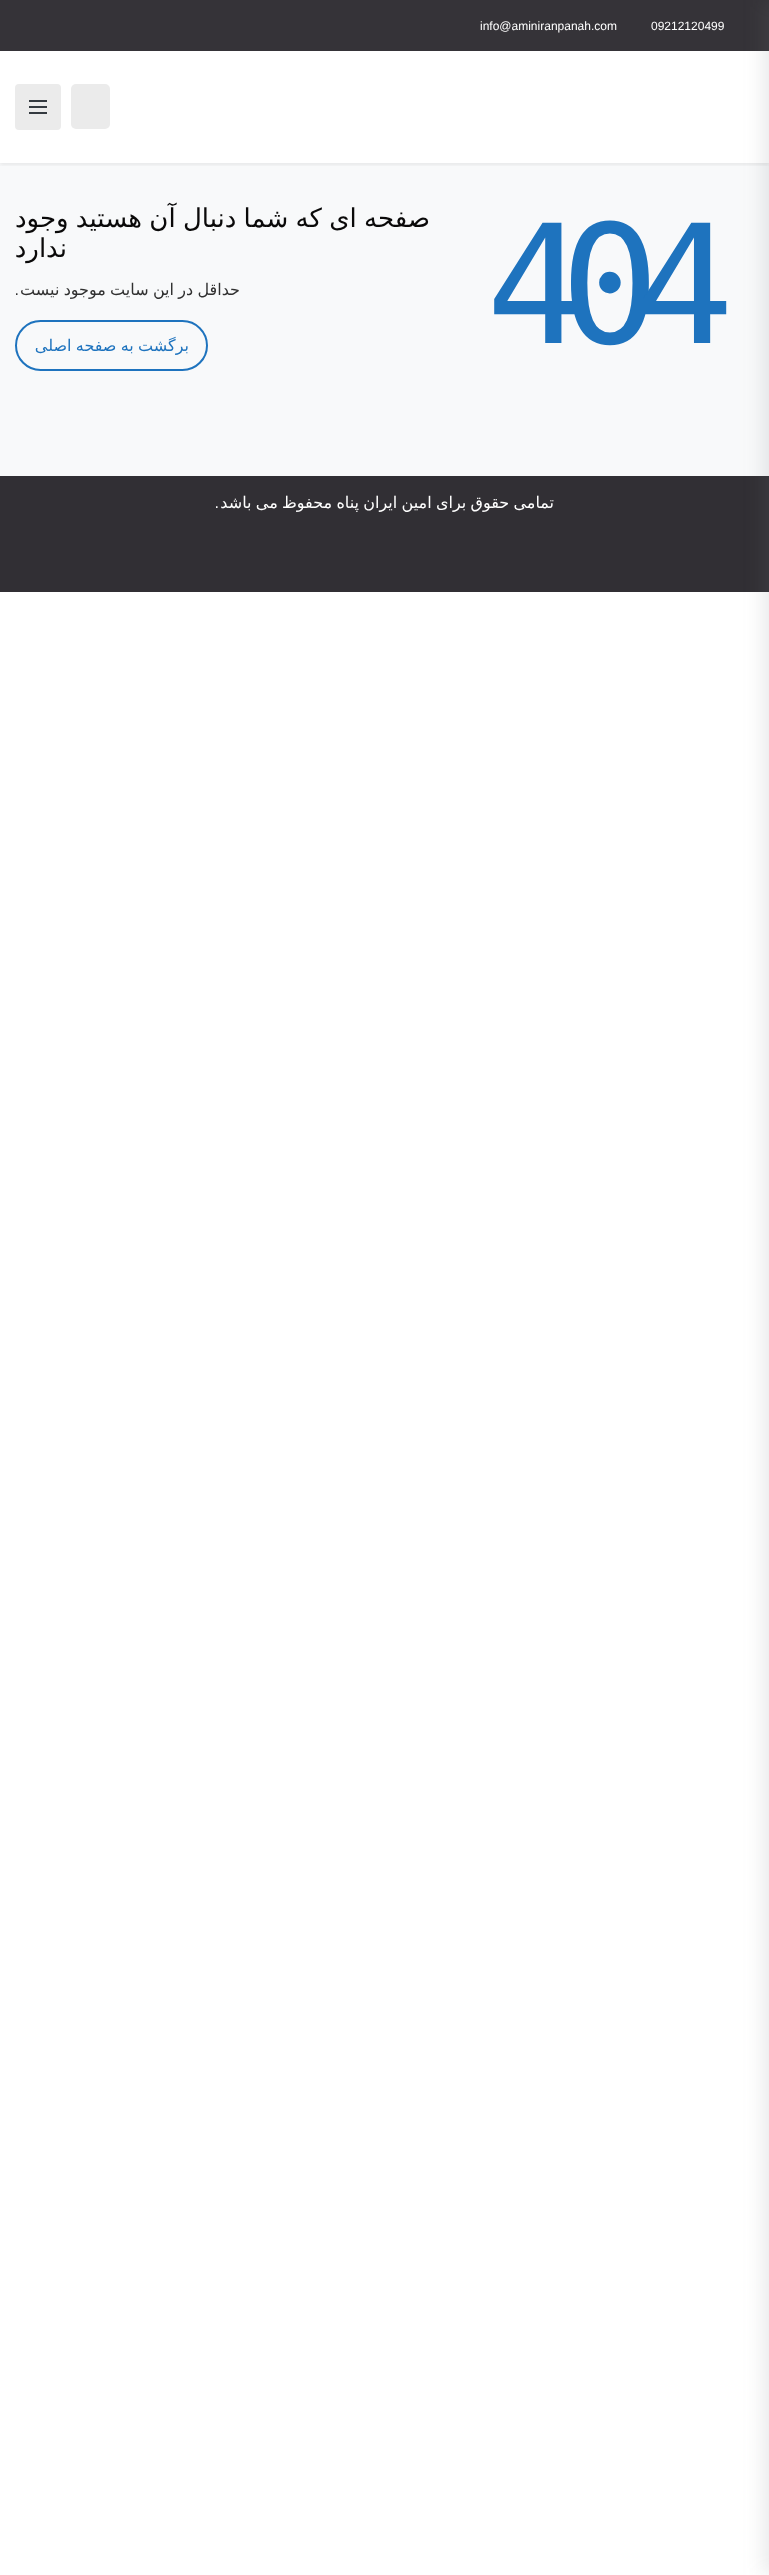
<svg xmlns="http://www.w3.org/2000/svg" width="769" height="2575">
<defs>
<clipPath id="clip1"><rect x="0" y="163" width="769" height="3"/></clipPath>
</defs>
<rect width="100%" height="100%" fill="#fff"/>
<rect width="769" height="51" fill="#353338"/>
<rect y="163" width="769" height="313" fill="#f8f9fa"/>
<rect y="476" width="769" height="116" fill="#312f34"/>
<rect x="764" width="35" height="2575" fill="#73767f2b" filter="blur(10px)"/>
<text x="651" y="30" style="font-family:Liberation Sans;font-size:12px;fill:#fff">09212120499</text>
<text x="480" y="30" style="font-family:Liberation Sans;font-size:12px;fill:#fff">info@aminiranpanah.com</text>
<g clip-path="url(#clip1)">
<rect y="53" width="769" height="112" fill="#00000012" filter="blur(2px)"/>
</g>
<rect x="71" y="84" width="39" height="45" rx="5" fill="#ebebeb"/>
<rect x="15" y="84" width="46" height="46" rx="4" fill="#ebebeb"/>
<rect x="29" y="106" width="18" height="2" fill="#343a40"/>
<rect x="29" y="100" width="18" height="2" fill="#343a40"/>
<rect x="29" y="112" width="18" height="2" fill="#343a40"/>
<text x="486" y="343" style="font-family:DejaVu Sans Mono;font-size:165px;letter-spacing:-25px;fill:#1e73be">404</text>
<text x="430" y="227" word-spacing="-1" style="font-family:DejaVu Sans;font-size:26px;direction:rtl;fill:#0a0909">صفحه ای که شما دنبال آن هستید وجود</text>
<text x="67" y="257" style="font-family:DejaVu Sans;font-size:26px;direction:rtl;fill:#0a0909">ندارد</text>
<text x="240" y="295" word-spacing="-0.75" style="font-family:DejaVu Sans;font-size:16px;direction:rtl;fill:#303030">حداقل در این سایت موجود نیست</text>
<text x="19" y="295" style="font-family:Liberation Sans;font-size:16px;direction:rtl;fill:#303030">.</text>
<rect x="16" y="321" width="191" height="49" rx="24.5" fill="none" stroke="#1e73be" stroke-width="2"/>
<text x="189" y="351" word-spacing="-0.75" style="font-family:DejaVu Sans;font-size:16px;direction:rtl;fill:#1e73be">برگشت به صفحه اصلی</text>
<text x="554" y="508" word-spacing="-0.75" style="font-family:DejaVu Sans;font-size:16px;direction:rtl;fill:#fff">تمامی حقوق برای امین ایران پناه محفوظ می باشد</text>
<text x="219" y="508" style="font-family:Liberation Sans;font-size:16px;direction:rtl;fill:#fff">.</text>
</svg>
